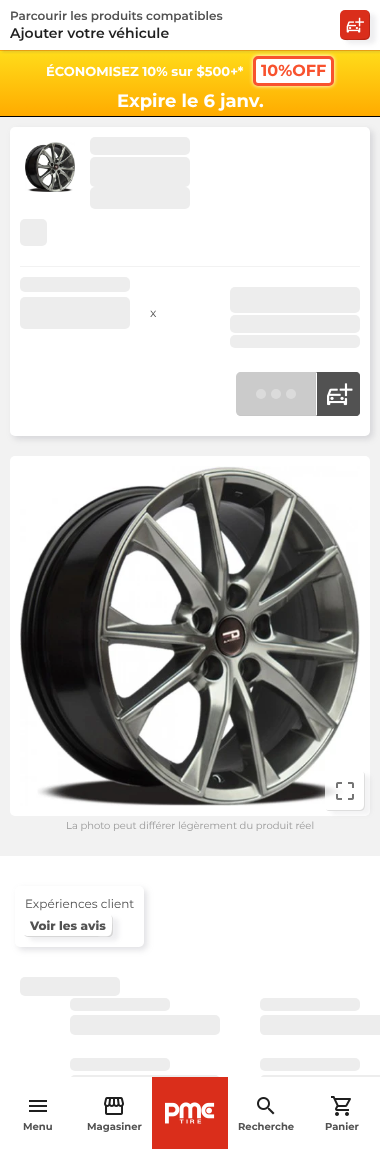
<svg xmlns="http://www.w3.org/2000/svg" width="380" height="1149">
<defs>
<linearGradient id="g1" gradientUnits="userSpaceOnUse" x1="190" y1="-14" x2="190" y2="51"><stop offset="0" stop-color="#ffdc1a"/><stop offset="1" stop-color="#ffab00"/></linearGradient>
<linearGradient id="g2" gradientUnits="userSpaceOnUse" x1="190" y1="51" x2="190" y2="116"><stop offset="0" stop-color="#ffdc1a"/><stop offset="1" stop-color="#ffab00"/></linearGradient>
<clipPath id="clip1"><rect x="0" y="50" width="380" height="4"/></clipPath>
<clipPath id="clip2"><path d="M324 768h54v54h-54zm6 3h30c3 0 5 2 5 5v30c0 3-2 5-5 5h-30c-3 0-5-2-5-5v-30c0-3 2-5 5-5z" clip-rule="evenodd"/></clipPath>
</defs>
<rect width="100%" height="100%" fill="#fff"/>
<rect y="50" width="380" height="1" fill="url(#g1)"/>
<rect y="51" width="380" height="65" fill="url(#g2)"/>
<rect x="253" y="56" width="81" height="30" rx="5" fill="#fff" filter="blur(2px)"/>
<rect x="254.5" y="57.5" width="78" height="27" rx="3.5" fill="#fff" stroke="#f8522e" stroke-width="3"/>
<g clip-path="url(#clip1)">
<rect x="2" y="2" width="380" height="50" fill="#64657233" filter="blur(1.5px)"/>
</g>
<text x="10" y="20" style="font-family:Montserrat;font-size:12px;font-weight:600;fill:#525252">Parcourir les produits compatibles</text>
<text x="10" y="38" style="font-family:Montserrat;font-size:14px;font-weight:600;fill:#1f1f1f">Ajouter votre véhicule</text>
<rect x="346" y="14" width="30" height="30" rx="5" fill="#6465721a" filter="blur(2px)"/>
<rect x="340" y="10" width="30" height="30" rx="5" fill="#da2e1b"/>
<path d="M341 38c2.5 3 7.5 2 10.5 2c20.5 0 18.5 2 18.5-18.5c0-3 1-8-2-10.5c.5 1 1 2 1 3v19.5c0 1.5 0 2.5-1 3.5c-.5 1-2 1.5-3 1.5c-2 .5-21.5 1.5-24-.5z" fill="#00000029"/>
<image x="346" y="17" width="18" height="16" href="media/1.png"/>
<rect y="117" width="380" height="739" fill="#f2f2f2"/>
<rect x="13" y="130" width="360" height="309" rx="5" fill="#64657233" filter="blur(3px)"/>
<rect x="10" y="127" width="360" height="309" rx="5" fill="#fff"/>
<image x="25" y="142" width="50" height="50" href="media/2.png"/>
<rect x="90" y="137" width="100" height="18" rx="5" fill="#ededed"/>
<rect x="90" y="157" width="100" height="30" rx="5" fill="#ededed"/>
<rect x="90" y="187" width="100" height="22" rx="5" fill="#ededed"/>
<rect x="20" y="219" width="27" height="27" rx="5" fill="#ededed"/>
<rect x="20" y="266" width="340" height="1" fill="#f2f2f2"/>
<rect x="20" y="277" width="110" height="15" rx="5" fill="#ededed"/>
<rect x="20" y="297" width="110" height="32" rx="5" fill="#ededed"/>
<text x="150" y="317" style="font-family:Montserrat;font-size:12px;fill:#525252">x</text>
<rect x="230" y="287" width="130" height="26" rx="5" fill="#ededed"/>
<rect x="230" y="315" width="130" height="18" rx="5" fill="#ededed"/>
<rect x="230" y="335" width="130" height="13" rx="5" fill="#ededed"/>
<path d="M241 372h75v44h-75c-3 0-5-2-5-5v-34c0-3 2-5 5-5z" fill="#cbcbcb"/>
<path d="M237 414l3 2h76v-44h-1v43h-75z" fill="#b3b3b329"/>
<circle cx="276" cy="394" r="5" fill="#dbdbdb"/>
<circle cx="261" cy="394" r="5" fill="#dbdbdb"/>
<circle cx="291" cy="394" r="5" fill="#dbdbdb"/>
<path d="M316 372h39c3 0 5 2 5 5v34c0 3-2 5-5 5h-39z" fill="#525252"/>
<path d="M316 372l1 1h38c1 0 2 1 3 1l1-1c-1-1-3-1-4-1z" fill="#525252"/>
<path d="M360 411v-34c0-1 0-3-1-4l-1 1c0 1 1 2 1 3v34c0 1-1 2-1 3l1 1c1-1 1-3 1-4z" fill="#525252"/>
<path d="M355 416c1 0 3 0 4-1l-1-1c-1 0-2 1-3 1h-38l-1 1z" fill="#525252"/>
<path d="M316 372v44l1-1v-42z" fill="#fff"/>
<image x="327" y="383" width="26" height="23" href="media/3.png"/>
<rect x="10" y="456" width="360" height="360" rx="5" fill="#fff"/>
<image x="20" y="466" width="340" height="340" href="media/4.png"/>
<g clip-path="url(#clip2)">
<rect x="331" y="775" width="40" height="40" rx="5" fill="#64657214" filter="blur(2px)"/>
</g>
<rect x="325" y="771" width="40" height="40" rx="5" fill="#ffffffcc"/>
<path d="M326 809.5c1 1 2.5 1.5 4 1.5h30c3 0 5-2 5-5v-30c0-1.5-.5-3-1.5-4c.5 1 .5 2 .5 3v30c0 3-2 5-5 5h-30c-1 0-2 0-3-.5z" fill="#33333329"/>
<image x="336" y="782" width="18" height="18" href="media/5.png"/>
<text x="66" y="829" style="font-family:Montserrat;font-size:10px;fill:#979797">La photo peut différer légèrement du produit réel</text>
<rect x="18" y="889" width="129" height="61" rx="5" fill="#64657233" filter="blur(3px)"/>
<rect x="15" y="886" width="129" height="61" rx="5" fill="#fff"/>
<text x="25" y="908" style="font-family:Montserrat;font-size:12px;fill:#525252">Expériences client</text>
<rect x="29" y="918" width="90" height="23" rx="5" fill="#6465721a" filter="blur(2px)"/>
<rect x="23" y="914" width="90" height="23" rx="5" fill="#fff"/>
<path d="M24 935c1 1 3 2 4 2h80c3 0 5-2 5-5v-13c0-1-1-3-2-4c2 3 1 9 1 12c0 12-4 9-18 9h-67z" fill="#00000029"/>
<text x="30" y="930" style="font-family:Montserrat;font-size:12px;font-weight:800;fill:#525252">Voir les avis</text>
<rect x="20" y="977" width="100" height="19" rx="5" fill="#ededed"/>
<rect x="70" y="998" width="100" height="13" rx="5" fill="#ededed"/>
<rect x="70" y="1015" width="150" height="20" rx="5" fill="#ededed"/>
<rect x="260" y="998" width="100" height="13" rx="5" fill="#ededed"/>
<path d="M265 1015h115v20h-115c-3 0-5-2-5-5v-10c0-3 2-5 5-5z" fill="#ededed"/>
<rect x="70" y="1058" width="100" height="13" rx="5" fill="#ededed"/>
<rect x="70" y="1075" width="150" height="20" rx="5" fill="#ededed"/>
<rect x="260" y="1058" width="100" height="13" rx="5" fill="#ededed"/>
<path d="M265 1075h115v20h-115c-3 0-5-2-5-5v-10c0-3 2-5 5-5z" fill="#ededed"/>
<rect y="116" width="380" height="1" fill="#000"/>
<text x="46" y="76" style="font-family:Montserrat;font-size:13px;font-weight:bold;fill:#fff">ÉCONOMISEZ 10% sur $500+*</text>
<text x="261" y="76" style="font-family:Montserrat;font-size:16px;font-weight:bold;fill:#f8522e">10%OFF</text>
<text x="117" y="107" style="font-family:Montserrat;font-size:18px;font-weight:bold;fill:#fff">Expire le 6 janv.</text>
<rect x="70" y="1077" width="82" height="18" fill="#fff"/>
<image x="29" y="1100" width="18" height="12" href="media/6.png"/>
<text x="23" y="1130" style="font-family:Montserrat;font-size:10px;font-weight:bold;fill:#525252">Menu</text>
<image x="104" y="1097" width="20" height="18" href="media/7.png"/>
<text x="87" y="1130" style="font-family:Montserrat;font-size:10px;font-weight:bold;fill:#525252">Magasiner</text>
<rect x="152" y="1077" width="76" height="72" fill="#da2e1b"/>
<image x="165" y="1102" width="50" height="22" href="media/8.png"/>
<rect x="260" y="1077" width="120" height="18" fill="#fff"/>
<image x="257" y="1097" width="18" height="18" href="media/9.png"/>
<text x="238" y="1130" style="font-family:Montserrat;font-size:10px;font-weight:bold;fill:#525252">Recherche</text>
<image x="331" y="1096" width="20" height="20" href="media/10.png"/>
<text x="325" y="1130" style="font-family:Montserrat;font-size:10px;font-weight:bold;fill:#525252">Panier</text>
</svg>
